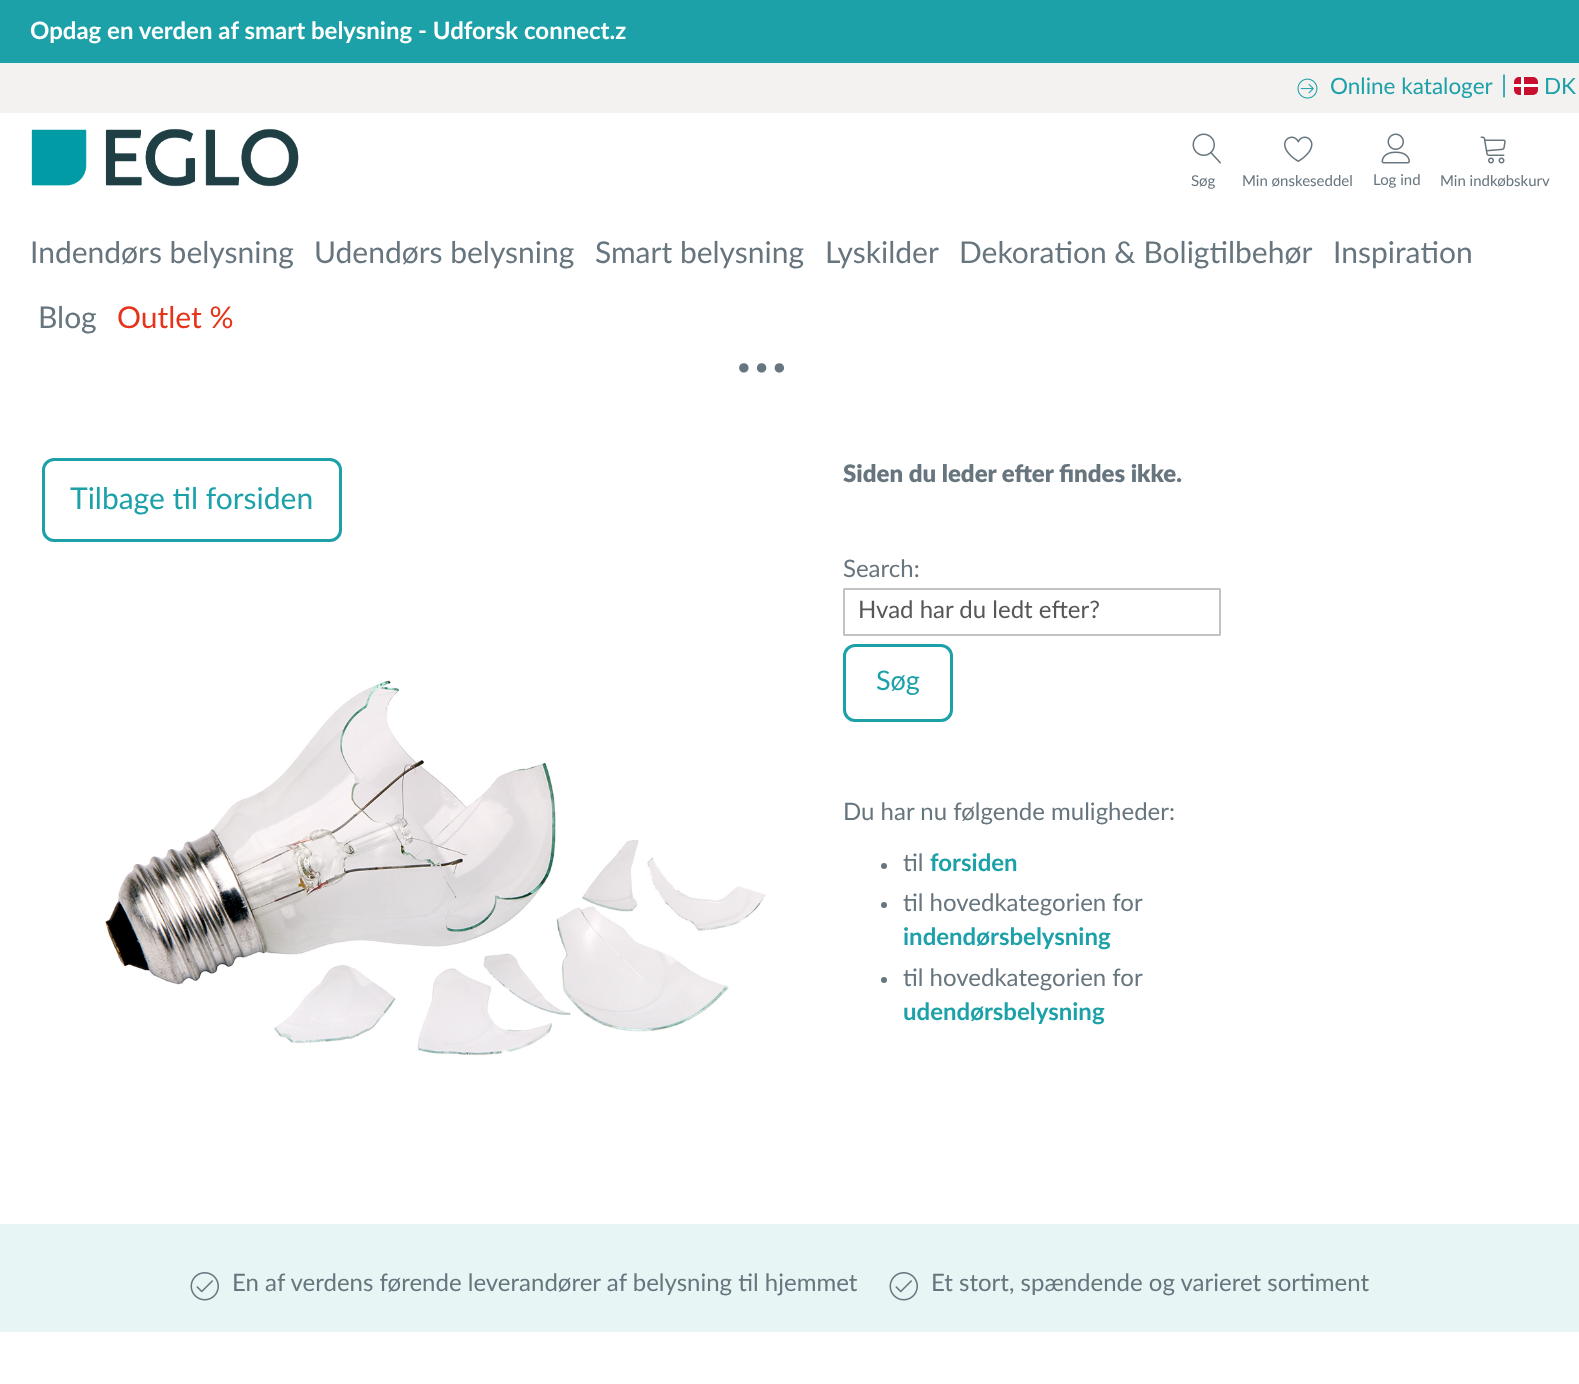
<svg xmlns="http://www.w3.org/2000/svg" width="1579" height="1384">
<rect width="100%" height="100%" fill="#fff"/>
<rect y="63" width="1579" height="50" fill="#f4f2f1"/>
<rect width="1579" height="63" fill="#1ca1a9"/>
<text x="30" y="39" style="font-family:Lato;font-size:24px;font-weight:bold;fill:#fff">Opdag en verden af smart belysning - Udforsk connect.z</text>
<image x="1297" y="78" width="21" height="21" href="media/1.png"/>
<text x="1330" y="94" style="font-family:Lato;font-size:22.5px;fill:#1ca1a9">Online kataloger</text>
<text x="1501" y="93" style="font-family:Lato;font-size:24px;fill:#1ca1a9">|</text>
<rect x="1514" y="77" width="24" height="18" rx="5" fill="#c8102e"/>
<rect x="1521" y="77" width="3" height="18" fill="#fff"/>
<text x="1544" y="94" style="font-family:Lato;font-size:22.5px;fill:#1ca1a9">DK</text>
<rect x="1514" y="84" width="24" height="3" fill="#fff"/>
<image x="31" y="128" width="268" height="59" href="media/2.png"/>
<image x="1192" y="133" width="29" height="31" href="media/3.png"/>
<text x="1191" y="186" style="font-family:Lato;font-size:15px;fill:#67757e">Søg</text>
<image x="1284" y="136" width="29" height="26" href="media/4.png"/>
<text x="1242" y="186" style="font-family:Lato;font-size:15px;fill:#67757e">Min ønskeseddel</text>
<image x="1381" y="133" width="29" height="31" href="media/5.png"/>
<text x="1373" y="185" style="font-family:Lato;font-size:15px;fill:#67757e">Log ind</text>
<image x="1480" y="136" width="26" height="28" href="media/6.png"/>
<text x="1440" y="186" style="font-family:Lato;font-size:15px;fill:#67757e">Min indkøbskurv</text>
<text x="30" y="263" style="font-family:Lato;font-size:30px;fill:#67757e">Indendørs belysning</text>
<text x="314" y="263" style="font-family:Lato;font-size:30px;fill:#67757e">Udendørs belysning</text>
<text x="595" y="263" style="font-family:Lato;font-size:30px;fill:#67757e">Smart belysning</text>
<text x="825" y="263" style="font-family:Lato;font-size:30px;fill:#67757e">Lyskilder</text>
<text x="959" y="263" style="font-family:Lato;font-size:30px;fill:#67757e">Dekoration &amp; Boligtilbehør</text>
<text x="1333" y="263" style="font-family:Lato;font-size:30px;fill:#67757e">Inspiration</text>
<text x="38" y="328" style="font-family:Lato;font-size:30px;fill:#67757e">Blog</text>
<text x="117" y="328" style="font-family:Lato;font-size:30px;fill:#e5341a">Outlet %</text>
<text x="735" y="372" style="font-family:Lato;font-size:75px;fill:#67757e">...</text>
<rect x="43.5" y="459.5" width="297" height="81" rx="10.5" fill="none" stroke="#1ca1a9" stroke-width="3"/>
<text x="70" y="509" style="font-family:Lato;font-size:30px;fill:#1ca1a9">Tilbage til forsiden</text>
<image x="105" y="678" width="661" height="378" href="media/7.png"/>
<text x="843" y="482" style="font-family:Lato;font-size:24px;font-weight:900;fill:#67757e">Siden du leder efter findes ikke.</text>
<text x="843" y="577" style="font-family:Lato;font-size:24px;fill:#67757e">Search:</text>
<rect x="844" y="589" width="376" height="46" rx="0.5" fill="none" stroke="#c2c2c2" stroke-width="2"/>
<text x="858" y="618" style="font-family:Lato;font-size:24px;fill:#575757">Hvad har du ledt efter?</text>
<rect x="844.5" y="645.5" width="107" height="75" rx="10.5" fill="none" stroke="#1ca1a9" stroke-width="3"/>
<text x="876" y="690" style="font-family:Lato;font-size:27px;fill:#1ca1a9">Søg</text>
<text x="843" y="820" style="font-family:Lato;font-size:24px;fill:#67757e">Du har nu følgende muligheder:</text>
<circle cx="884" cy="866" r="3" fill="#67757e"/>
<text x="903" y="871" style="font-family:Lato;font-size:24px;fill:#67757e">til</text>
<text x="930" y="871" style="font-family:Lato;font-size:24px;font-weight:bold;fill:#1ca1a9">forsiden</text>
<circle cx="884" cy="905" r="3" fill="#67757e"/>
<text x="903" y="911" style="font-family:Lato;font-size:24px;fill:#67757e">til hovedkategorien for</text>
<text x="903" y="945" style="font-family:Lato;font-size:24px;font-weight:bold;fill:#1ca1a9">indendørsbelysning</text>
<circle cx="884" cy="980" r="3" fill="#67757e"/>
<text x="903" y="986" style="font-family:Lato;font-size:24px;fill:#67757e">til hovedkategorien for</text>
<text x="903" y="1020" style="font-family:Lato;font-size:24px;font-weight:bold;fill:#1ca1a9">udendørsbelysning</text>
<rect y="1224" width="1579" height="108" fill="#e7f5f5"/>
<image x="190" y="1272" width="29" height="29" href="media/8.png"/>
<text x="232" y="1291" style="font-family:Lato;font-size:24px;fill:#67757e">En af verdens førende leverandører af belysning til hjemmet</text>
<image x="889" y="1272" width="29" height="29" href="media/8.png"/>
<text x="931" y="1291" style="font-family:Lato;font-size:24px;fill:#67757e">Et stort, spændende og varieret sortiment</text>
</svg>
